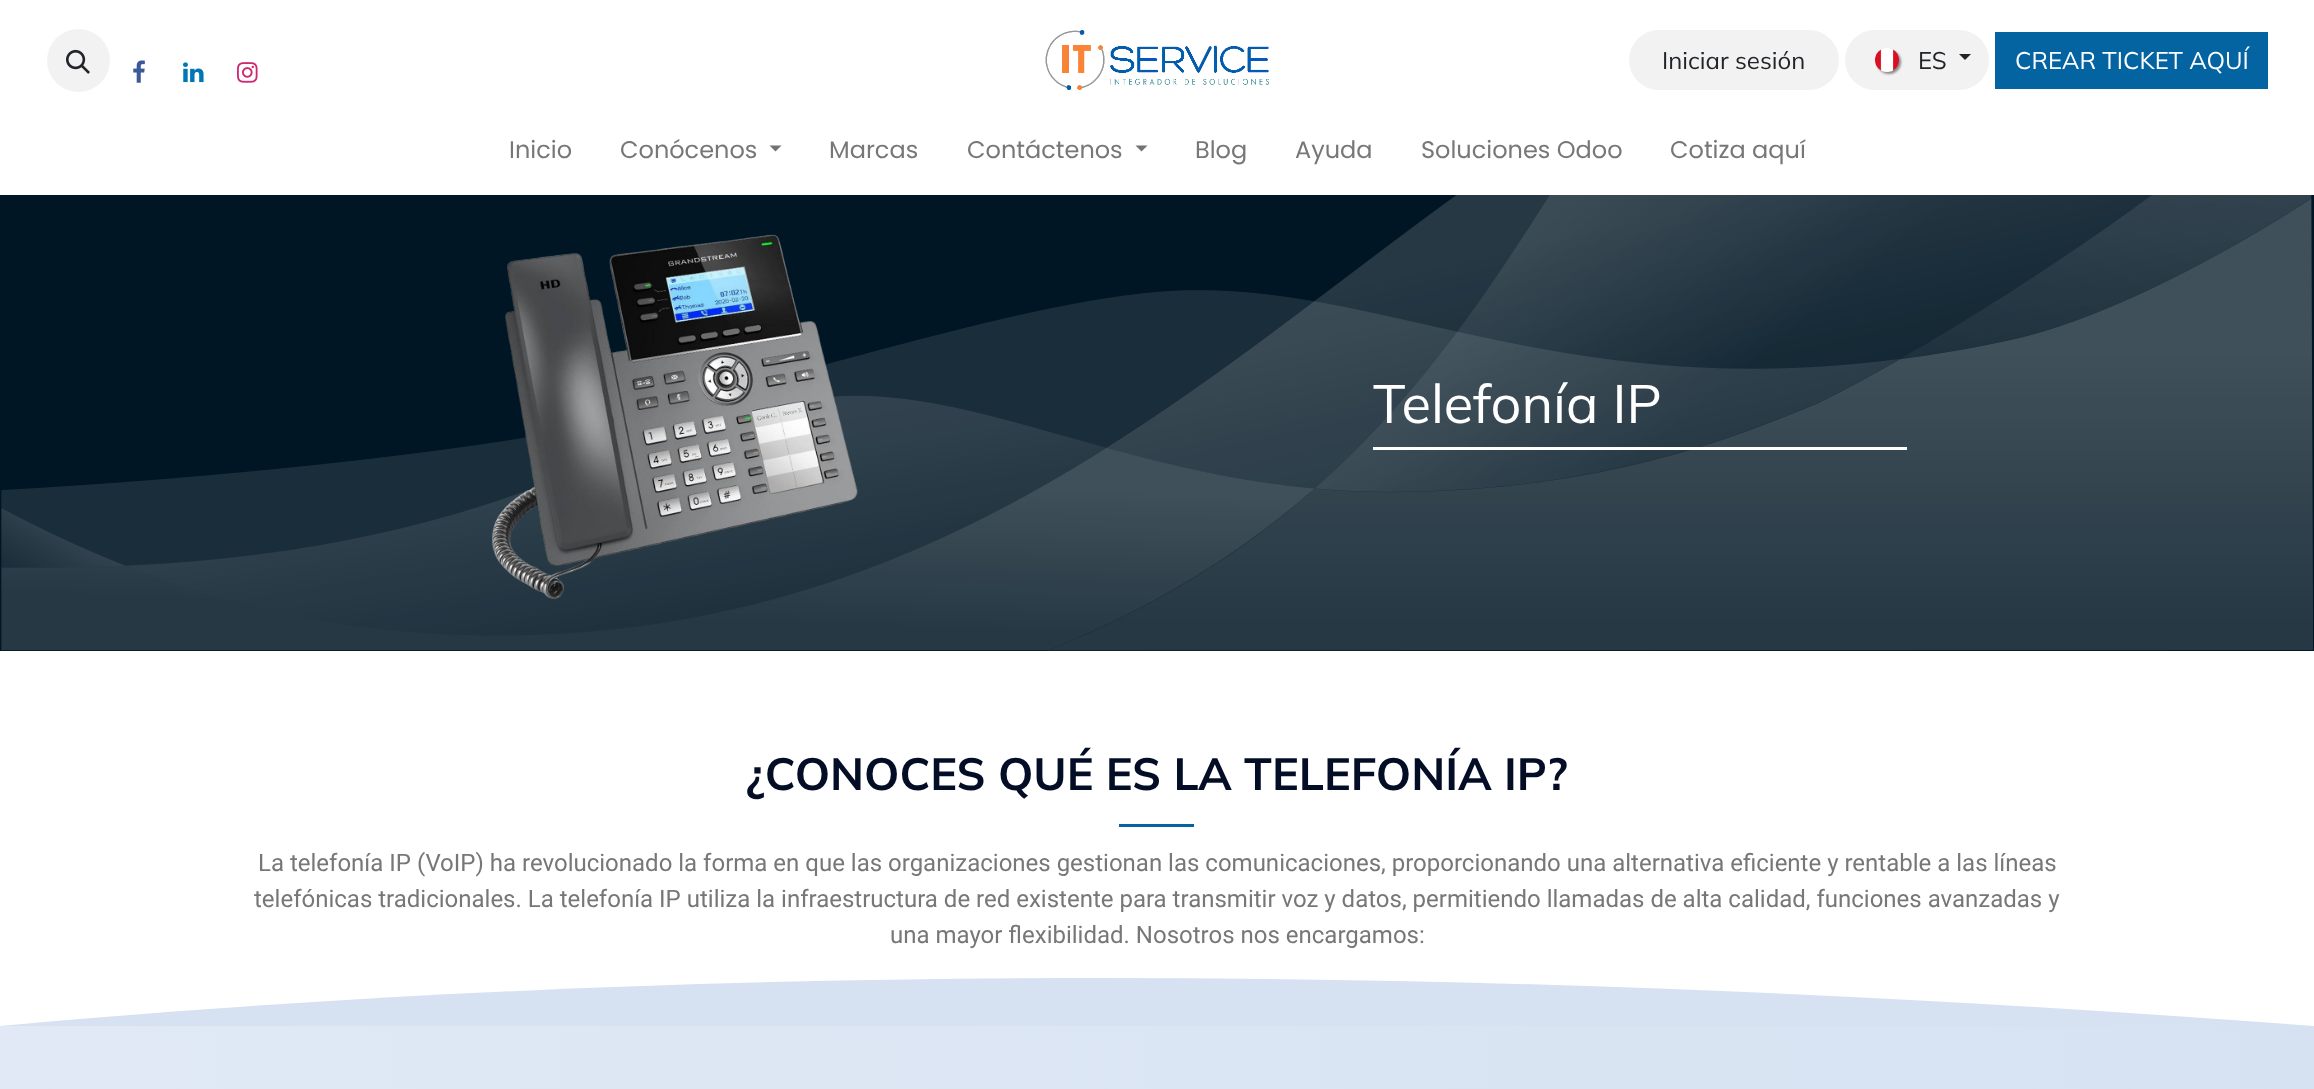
<svg xmlns="http://www.w3.org/2000/svg" width="2314" height="1089">
<defs>
<linearGradient id="g1" gradientUnits="userSpaceOnUse" x1="0" y1="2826" x2="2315" y2="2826"><stop offset="0" stop-color="#e0e9f5"/><stop offset="1" stop-color="#d6e2f2"/></linearGradient>
</defs>
<rect width="100%" height="100%" fill="#fff"/>
<circle cx="78.5" cy="60.5" r="31.5" fill="#f2f2f2"/>
<image x="66" y="49" width="24" height="25" href="media/1.png"/>
<image x="133" y="60" width="12" height="23" href="media/2.png"/>
<image x="183" y="62" width="21" height="21" href="media/3.png"/>
<image x="237" y="62" width="21" height="21" href="media/4.png"/>
<image x="1045" y="30" width="224" height="60" href="media/5.png"/>
<rect x="1629" y="30" width="210" height="60" rx="30" fill="#f2f2f2"/>
<text x="1662" y="69" style="font-family:Mulish;font-size:24px;fill:#212529">Iniciar sesión</text>
<rect x="1845" y="30" width="144" height="60" rx="30" fill="#f2f2f2"/>
<rect x="1877" y="50" width="24" height="24" rx="12" fill="#0000006e" filter="blur(1px)"/>
<image x="1875" y="48" width="24" height="24" href="media/6.png"/>
<text x="1918" y="69" style="font-family:Mulish;font-size:24px;fill:#212529">ES</text>
<path d="M1959 54h12l-6 6z" fill="#212529"/>
<rect x="1995" y="32" width="273" height="57" fill="#0364a1"/>
<text x="2015" y="69" style="font-family:Mulish;font-size:24px;fill:#fff">CREAR TICKET AQUÍ</text>
<text x="509" y="158" style="font-family:Poppins;font-size:24px;fill:#777">Inicio</text>
<text x="620" y="158" style="font-family:Poppins;font-size:24px;fill:#777">Conócenos</text>
<path d="M769.5 145.5h12l-6 6z" fill="#737373"/>
<text x="829" y="158" style="font-family:Poppins;font-size:24px;fill:#777">Marcas</text>
<text x="967" y="158" style="font-family:Poppins;font-size:24px;fill:#777">Contáctenos</text>
<path d="M1135.5 145.5h12l-6 6z" fill="#737373"/>
<text x="1195" y="158" style="font-family:Poppins;font-size:24px;fill:#777">Blog</text>
<text x="1295" y="158" style="font-family:Poppins;font-size:24px;fill:#777">Ayuda</text>
<text x="1421" y="158" style="font-family:Poppins;font-size:24px;fill:#777">Soluciones Odoo</text>
<text x="1670" y="158" style="font-family:Poppins;font-size:24px;fill:#777">Cotiza aquí</text>
<rect y="195" width="2314" height="456" fill="#011624"/>
<image x="1" y="195" width="2312" height="456" href="media/7.png"/>
<image x="492" y="234" width="366" height="365" href="media/8.png"/>
<text x="1373" y="423" style="font-family:Mulish;font-size:54px;fill:#fff">Telefonía IP</text>
<rect x="1373" y="447" width="534" height="3" fill="#fff"/>
<text x="746" y="790" style="font-family:Mulish;font-size:45px;font-weight:bold;fill:#030d26">¿CONOCES QUÉ ES LA TELEFONÍA IP?</text>
<rect x="1119" y="824" width="75" height="3" fill="#0364a1"/>
<text x="258" y="871" style="font-family:Roboto;font-size:24px;fill:#777">La telefonía IP (VoIP) ha revolucionado la forma en que las organizaciones gestionan las comunicaciones, proporcionando una alternativa eficiente y rentable a las líneas</text>
<text x="254" y="907" style="font-family:Roboto;font-size:24px;fill:#777">telefónicas tradicionales. La telefonía IP utiliza la infraestructura de red existente para transmitir voz y datos, permitiendo llamadas de alta calidad, funciones avanzadas y</text>
<text x="890" y="943" style="font-family:Roboto;font-size:24px;fill:#777">una mayor flexibilidad. Nosotros nos encargamos:</text>
<path d="M2314 1026h-2314c736-67 1510-61 2314 0z" fill="#d6e2f2"/>
<rect y="1026" width="2314" height="63" fill="url(#g1)"/>
</svg>
